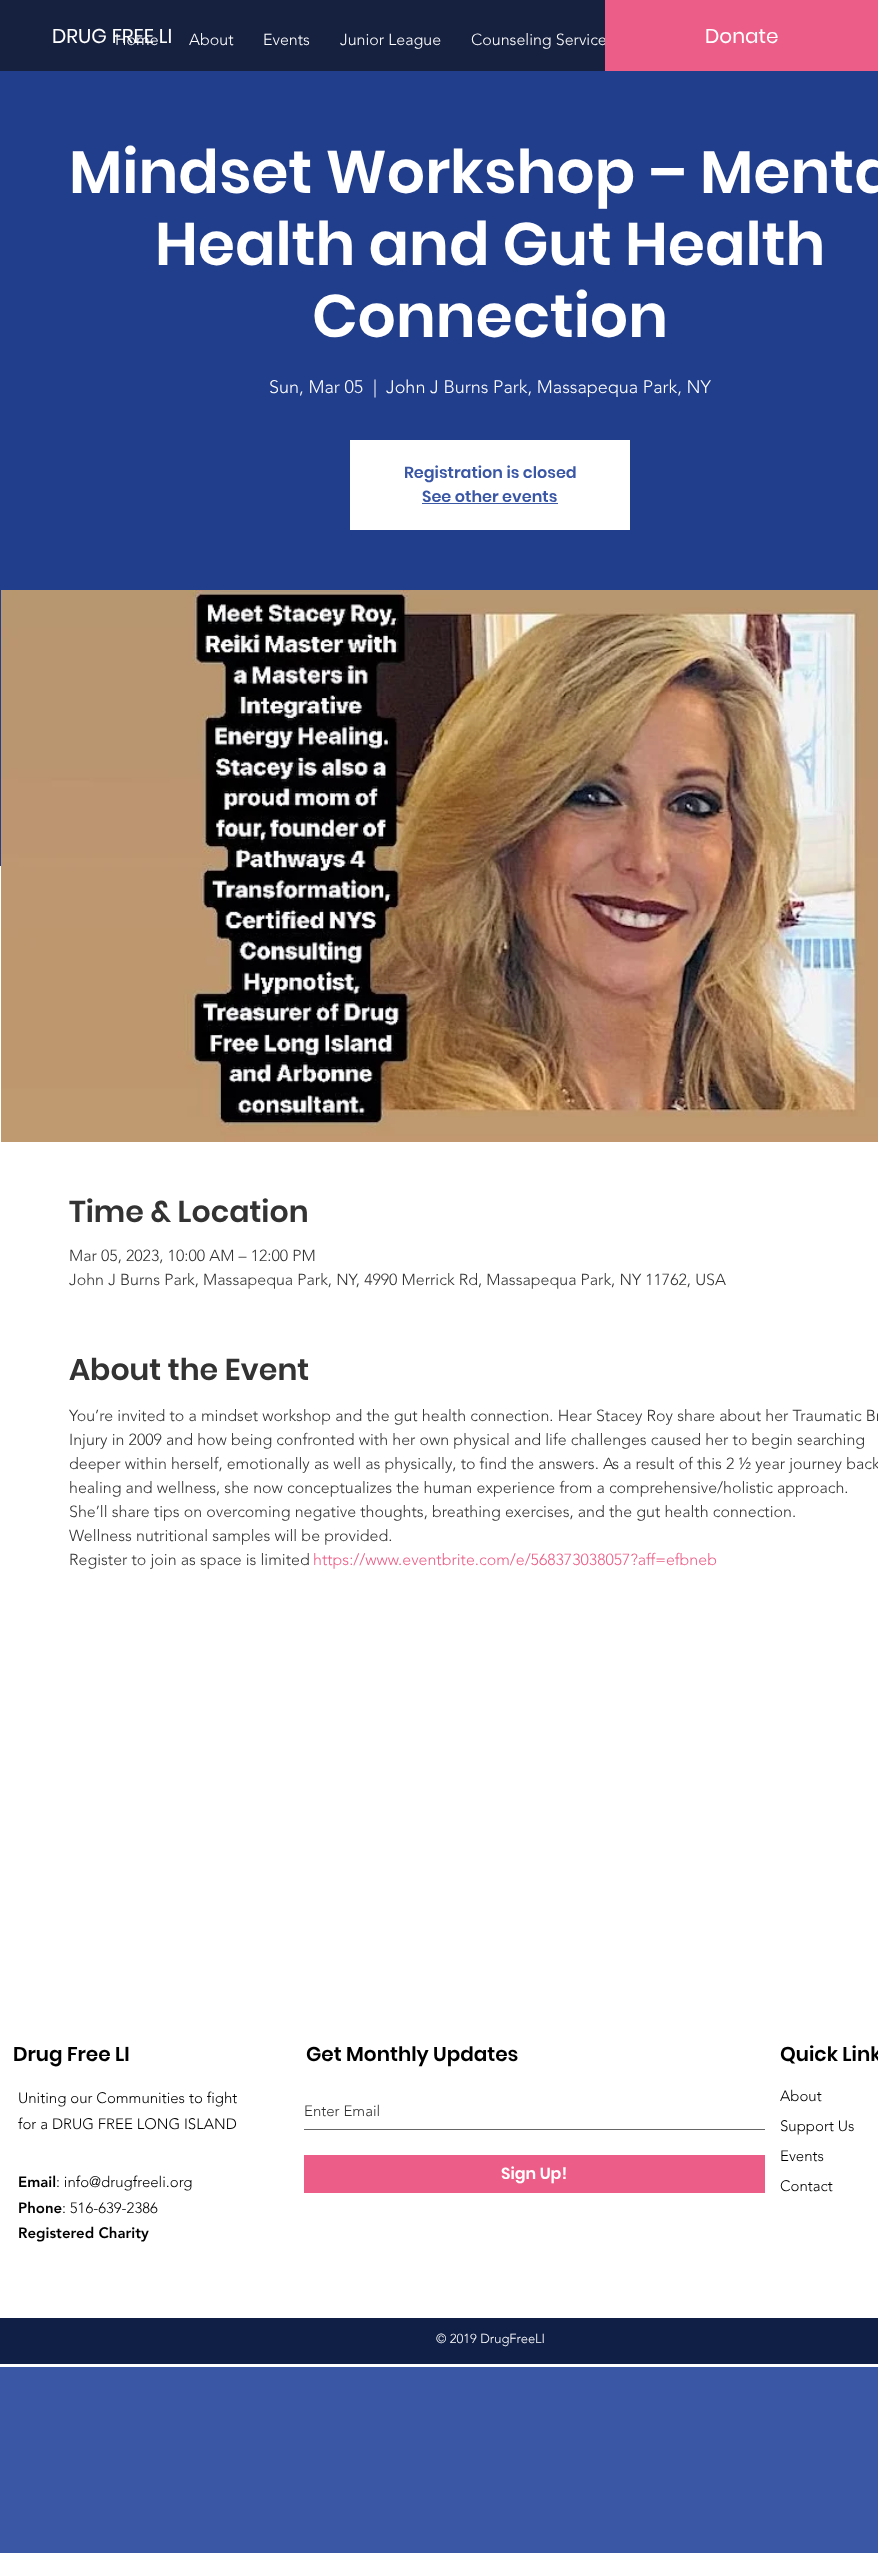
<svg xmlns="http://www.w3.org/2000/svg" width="878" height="2553">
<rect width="100%" height="100%" fill="#3a57a6"/>
<rect width="605" height="71" fill="#16213f"/>
<text x="115" y="45" style="font-family:'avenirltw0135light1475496';font-size:16px;font-weight:300;fill:#fff">Home</text>
<text x="52" y="43" style="font-family:Poppins;font-size:20px;fill:#fff">DRUG FREE LI</text>
<text x="189" y="45" style="font-family:'avenirltw0135light1475496';font-size:16px;font-weight:300;fill:#fff">About</text>
<text x="263" y="45" style="font-family:'avenirltw0135light1475496';font-size:16px;font-weight:300;fill:#fff">Events</text>
<text x="340" y="45" style="font-family:'avenirltw0135light1475496';font-size:16px;font-weight:300;fill:#fff">Junior League</text>
<text x="471" y="45" style="font-family:'avenirltw0135light1475496';font-size:16px;font-weight:300;fill:#fff">Counseling Service</text>
<rect x="605" width="273" height="71" fill="#ec5e87"/>
<text x="705" y="43" style="font-family:Poppins;font-size:20px;fill:#fff">Donate</text>
<rect y="71" width="878" height="795" fill="#213e8c"/>
<text x="69" y="193" style="font-family:Poppins;font-size:60px;font-weight:600;fill:#fff">Mindset Workshop – Menta</text>
<text x="155" y="265" style="font-family:Poppins;font-size:60px;font-weight:600;fill:#fff">Health and Gut Health</text>
<text x="312" y="337" style="font-family:Poppins;font-size:60px;font-weight:600;fill:#fff">Connection</text>
<text x="269" y="393" style="font-family:'avenirltw0135light1475496';font-size:18px;font-weight:300;fill:#fff">Sun, Mar 05</text>
<text x="373" y="393" style="font-family:'avenirltw0135light1475496';font-size:18px;font-weight:300;fill:#fff">|</text>
<text x="386" y="393" style="font-family:'avenirltw0135light1475496';font-size:18px;font-weight:300;fill:#fff">John J Burns Park, Massapequa Park, NY</text>
<rect x="350" y="440" width="280" height="90" fill="#fff"/>
<text x="404" y="478" style="font-family:Poppins;font-size:16px;font-weight:600;fill:#3a57a6">Registration is closed</text>
<text x="422" y="502" style="font-family:Poppins;font-size:16px;font-weight:600;fill:#3a57a6">See other events</text>
<rect x="422" y="503" width="136" height="1" fill="#3a57a6"/>
<rect y="866" width="878" height="1501" fill="#fff"/>
<image x="1" y="590" width="877" height="552" href="media/1.png"/>
<text x="69" y="1222" style="font-family:Poppins;font-size:30px;font-weight:600;fill:#333">Time &amp; Location</text>
<text x="69" y="1261" style="font-family:'avenirltw0135light1475496';font-size:16px;font-weight:300;fill:#333">Mar 05, 2023, 10:00 AM – 12:00 PM</text>
<text x="69" y="1285" style="font-family:'avenirltw0135light1475496';font-size:16px;font-weight:300;fill:#333">John J Burns Park, Massapequa Park, NY, 4990 Merrick Rd, Massapequa Park, NY 11762, USA</text>
<text x="69" y="1380" style="font-family:Poppins;font-size:30px;font-weight:600;fill:#333">About the Event</text>
<text x="69" y="1421" style="font-family:'avenirltw0135light1475496';font-size:16px;font-weight:300;fill:#333">You’re invited to a mindset workshop and the gut health connection. Hear Stacey Roy share about her Traumatic Br</text>
<text x="69" y="1445" style="font-family:'avenirltw0135light1475496';font-size:16px;font-weight:300;fill:#333">Injury in 2009 and how being confronted with her own physical and life challenges caused her to begin searching</text>
<text x="69" y="1469" style="font-family:'avenirltw0135light1475496';font-size:16px;font-weight:300;fill:#333">deeper within herself, emotionally as well as physically, to find the answers. As a result of this 2 ½ year journey back</text>
<text x="69" y="1493" style="font-family:'avenirltw0135light1475496';font-size:16px;font-weight:300;fill:#333">healing and wellness, she now conceptualizes the human experience from a comprehensive/holistic approach.</text>
<text x="69" y="1517" style="font-family:'avenirltw0135light1475496';font-size:16px;font-weight:300;fill:#333">She’ll share tips on overcoming negative thoughts, breathing exercises, and the gut health connection.</text>
<text x="69" y="1541" style="font-family:'avenirltw0135light1475496';font-size:16px;font-weight:300;fill:#333">Wellness nutritional samples will be provided.</text>
<text x="69" y="1565" style="font-family:'avenirltw0135light1475496';font-size:16px;font-weight:300;fill:#333">Register to join as space is limited</text>
<text x="313" y="1565" style="font-family:'avenirltw0135light1475496';font-size:16px;font-weight:300;fill:#ec5e87">https://www.eventbrite.com/e/568373038057?aff=efbneb</text>
<text x="13" y="2061" style="font-family:Poppins;font-size:20px;font-weight:600;fill:#000">Drug Free LI</text>
<text x="18" y="2103" style="font-family:'avenirltw0135light1475496';font-size:15px;font-weight:300;fill:#000">Uniting our Communities to fight</text>
<text x="18" y="2129" style="font-family:'avenirltw0135light1475496';font-size:15px;font-weight:300;fill:#000">for a DRUG FREE LONG ISLAND</text>
<text x="18" y="2187" style="font-family:'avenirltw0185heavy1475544';font-size:15px;font-weight:900;fill:#000">Email</text>
<text x="56" y="2187" style="font-family:'avenirltw0135light1475496';font-size:15px;font-weight:300;fill:#000">: info@drugfreeli.org</text>
<text x="18" y="2213" style="font-family:'avenirltw0185heavy1475544';font-size:15px;font-weight:900;fill:#000">Phone</text>
<text x="62" y="2213" style="font-family:'avenirltw0135light1475496';font-size:15px;font-weight:300;fill:#000">: 516-639-2386</text>
<text x="18" y="2238" style="font-family:'avenirltw0185heavy1475544';font-size:15px;font-weight:900;fill:#000">Registered Charity</text>
<text x="306" y="2061" style="font-family:Poppins;font-size:20px;font-weight:600;fill:#000">Get Monthly Updates</text>
<rect x="304" y="2129" width="461" height="1" fill="#666"/>
<text x="304" y="2116" style="font-family:'avenirltw0135light1475496';font-size:15px;font-weight:300;fill:#333">Enter Email</text>
<rect x="304" y="2155" width="461" height="38" fill="#ec5e87"/>
<text x="501" y="2179" style="font-family:Poppins;font-size:16px;font-weight:600;fill:#fff">Sign Up!</text>
<text x="780" y="2061" style="font-family:Poppins;font-size:20px;font-weight:600;fill:#000">Quick Link</text>
<text x="780" y="2101" style="font-family:'avenirltw0135light1475496';font-size:15px;font-weight:300;fill:#000">About</text>
<text x="780" y="2131" style="font-family:'avenirltw0135light1475496';font-size:15px;font-weight:300;fill:#000">Support Us</text>
<text x="780" y="2161" style="font-family:'avenirltw0135light1475496';font-size:15px;font-weight:300;fill:#000">Events</text>
<text x="780" y="2191" style="font-family:'avenirltw0135light1475496';font-size:15px;font-weight:300;fill:#000">Contact</text>
<rect y="2318" width="878" height="46" fill="#101f46"/>
<text x="436" y="2343" style="font-family:'avenirltw0135light1475496';font-size:13px;font-weight:300;fill:#fff">© 2019 DrugFreeLI</text>
</svg>
